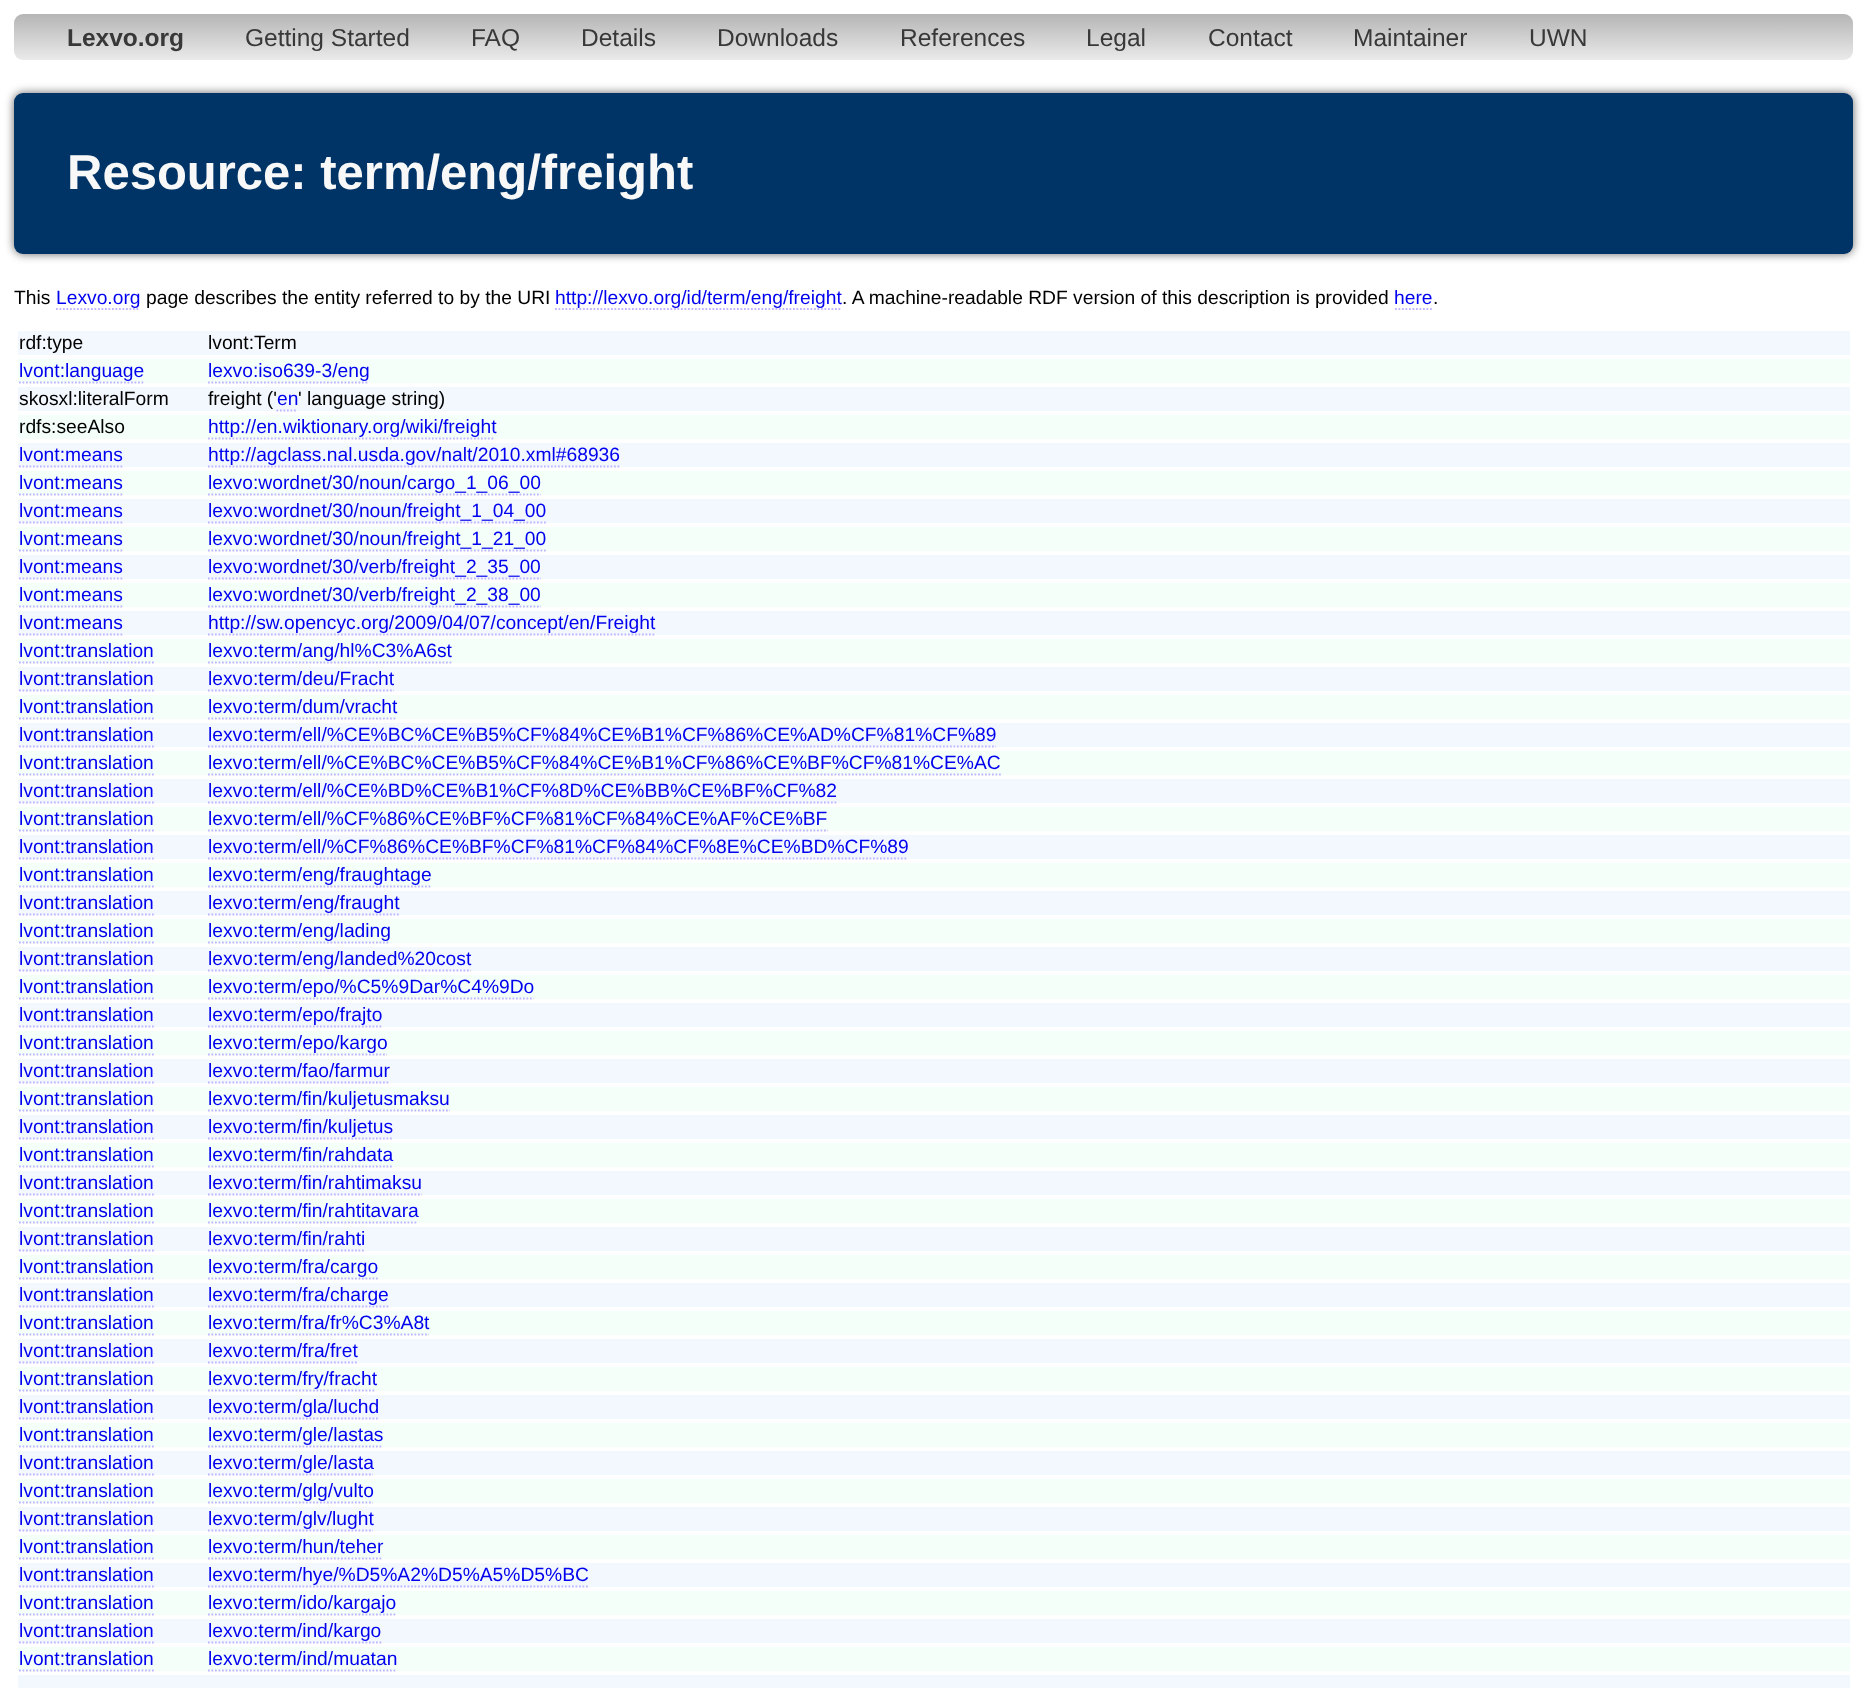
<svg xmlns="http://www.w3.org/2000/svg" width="1866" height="1688">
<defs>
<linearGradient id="g1" gradientUnits="userSpaceOnUse" x1="934" y1="14" x2="934" y2="60"><stop offset="0" stop-color="#b5b5b5"/><stop offset="1" stop-color="#eaeaea"/></linearGradient>
</defs>
<rect width="100%" height="100%" fill="#fff"/>
<rect x="14" y="14" width="1839" height="46" rx="9" fill="url(#g1)"/>
<text x="67" y="46" style="font-family:Liberation Sans;font-size:24.5px;font-weight:bold;fill:#383838">Lexvo.org</text>
<text x="245" y="46" style="font-family:Liberation Sans;font-size:24.5px;fill:#383838">Getting Started</text>
<text x="471" y="46" style="font-family:Liberation Sans;font-size:24.5px;fill:#383838">FAQ</text>
<text x="581" y="46" style="font-family:Liberation Sans;font-size:24.5px;fill:#383838">Details</text>
<text x="717" y="46" style="font-family:Liberation Sans;font-size:24.5px;fill:#383838">Downloads</text>
<text x="900" y="46" style="font-family:Liberation Sans;font-size:24.5px;fill:#383838">References</text>
<text x="1086" y="46" style="font-family:Liberation Sans;font-size:24.5px;fill:#383838">Legal</text>
<text x="1208" y="46" style="font-family:Liberation Sans;font-size:24.5px;fill:#383838">Contact</text>
<text x="1353" y="46" style="font-family:Liberation Sans;font-size:24.5px;fill:#383838">Maintainer</text>
<text x="1529" y="46" style="font-family:Liberation Sans;font-size:24.5px;fill:#383838">UWN</text>
<rect x="14" y="93" width="1839" height="161" rx="9" fill="#00000099" filter="blur(5px)"/>
<rect x="14" y="93" width="1839" height="161" rx="9" fill="#036"/>
<text x="67" y="189" style="font-family:Liberation Sans;font-size:49px;font-weight:bold;fill:#f8f8f8">Resource: term/eng/freight</text>
<text x="14" y="304" style="font-family:Liberation Sans;font-size:19.25px;fill:#000">This</text>
<text x="56" y="304" style="font-family:Liberation Sans;font-size:19.25px;fill:#00e">Lexvo.org</text>
<path d="M56 309h84" fill="none" stroke="#bfb6ff" stroke-width="1.8" stroke-dasharray="1.75 1.75"/>
<text x="146" y="304" style="font-family:Liberation Sans;font-size:19.25px;fill:#000">page describes the entity referred to by the URI</text>
<text x="555" y="304" style="font-family:Liberation Sans;font-size:19.25px;fill:#00e">http://lexvo.org/id/term/eng/freight</text>
<path d="M555 309h287" fill="none" stroke="#bfb6ff" stroke-width="1.8" stroke-dasharray="1.75 1.75"/>
<text x="842" y="304" style="font-family:Liberation Sans;font-size:19.25px;fill:#000">. A machine-readable RDF version of this description is provided</text>
<text x="1394" y="304" style="font-family:Liberation Sans;font-size:19.25px;fill:#00e">here</text>
<path d="M1395 309h38" fill="none" stroke="#bfb6ff" stroke-width="1.8" stroke-dasharray="1.75 1.75"/>
<text x="1433" y="304" style="font-family:Liberation Sans;font-size:19.25px;fill:#000">.</text>
<rect x="18" y="331" width="1832" height="24" fill="#f3f8ff"/>
<text x="19" y="349" style="font-family:Liberation Sans;font-size:19.25px;fill:#000">rdf:type</text>
<text x="208" y="349" style="font-family:Liberation Sans;font-size:19.25px;fill:#000">lvont:Term</text>
<rect x="18" y="359" width="1832" height="24" fill="#f3fff8"/>
<text x="19" y="377" style="font-family:Liberation Sans;font-size:19.25px;fill:#00e">lvont:language</text>
<path d="M19 382.5h126" fill="none" stroke="#bfb6ff" stroke-width="1.8" stroke-dasharray="1.75 1.75"/>
<text x="208" y="377" style="font-family:Liberation Sans;font-size:19.25px;fill:#00e">lexvo:iso639-3/eng</text>
<path d="M208 382.5h161" fill="none" stroke="#bfb6ff" stroke-width="1.8" stroke-dasharray="1.75 1.75"/>
<rect x="18" y="387" width="1832" height="24" fill="#f3f8ff"/>
<text x="19" y="405" style="font-family:Liberation Sans;font-size:19.25px;fill:#000">skosxl:literalForm</text>
<text x="208" y="405" style="font-family:Liberation Sans;font-size:19.25px;fill:#000">freight ('</text>
<text x="277" y="405" style="font-family:Liberation Sans;font-size:19.25px;fill:#00e">en</text>
<path d="M276.5 410.5h21" fill="none" stroke="#bfb6ff" stroke-width="1.8" stroke-dasharray="1.75 1.75"/>
<text x="298" y="405" style="font-family:Liberation Sans;font-size:19.25px;fill:#000">' language string)</text>
<rect x="18" y="415" width="1832" height="24" fill="#f3fff8"/>
<text x="19" y="433" style="font-family:Liberation Sans;font-size:19.25px;fill:#000">rdfs:seeAlso</text>
<text x="208" y="433" style="font-family:Liberation Sans;font-size:19.25px;fill:#00e">http://en.wiktionary.org/wiki/freight</text>
<path d="M208 438.5h287" fill="none" stroke="#bfb6ff" stroke-width="1.8" stroke-dasharray="1.75 1.75"/>
<rect x="18" y="443" width="1832" height="24" fill="#f3f8ff"/>
<text x="19" y="461" style="font-family:Liberation Sans;font-size:19.25px;fill:#00e">lvont:means</text>
<path d="M19 466.5h103.5" fill="none" stroke="#bfb6ff" stroke-width="1.8" stroke-dasharray="1.75 1.75"/>
<text x="208" y="461" style="font-family:Liberation Sans;font-size:19.25px;fill:#00e">http://agclass.nal.usda.gov/nalt/2010.xml#68936</text>
<path d="M208 466.5h411.5" fill="none" stroke="#bfb6ff" stroke-width="1.8" stroke-dasharray="1.75 1.75"/>
<rect x="18" y="471" width="1832" height="24" fill="#f3fff8"/>
<text x="19" y="489" style="font-family:Liberation Sans;font-size:19.25px;fill:#00e">lvont:means</text>
<path d="M19 494.5h103.5" fill="none" stroke="#bfb6ff" stroke-width="1.8" stroke-dasharray="1.75 1.75"/>
<text x="208" y="489" style="font-family:Liberation Sans;font-size:19.25px;fill:#00e">lexvo:wordnet/30/noun/cargo_1_06_00</text>
<path d="M208 494.5h333" fill="none" stroke="#bfb6ff" stroke-width="1.8" stroke-dasharray="1.75 1.75"/>
<rect x="18" y="499" width="1832" height="24" fill="#f3f8ff"/>
<text x="19" y="517" style="font-family:Liberation Sans;font-size:19.25px;fill:#00e">lvont:means</text>
<path d="M19 522.5h103.5" fill="none" stroke="#bfb6ff" stroke-width="1.8" stroke-dasharray="1.75 1.75"/>
<text x="208" y="517" style="font-family:Liberation Sans;font-size:19.25px;fill:#00e">lexvo:wordnet/30/noun/freight_1_04_00</text>
<path d="M208 522.5h338" fill="none" stroke="#bfb6ff" stroke-width="1.8" stroke-dasharray="1.75 1.75"/>
<rect x="18" y="527" width="1832" height="24" fill="#f3fff8"/>
<text x="19" y="545" style="font-family:Liberation Sans;font-size:19.25px;fill:#00e">lvont:means</text>
<path d="M19 550.5h103.5" fill="none" stroke="#bfb6ff" stroke-width="1.8" stroke-dasharray="1.75 1.75"/>
<text x="208" y="545" style="font-family:Liberation Sans;font-size:19.25px;fill:#00e">lexvo:wordnet/30/noun/freight_1_21_00</text>
<path d="M208 550.5h338" fill="none" stroke="#bfb6ff" stroke-width="1.8" stroke-dasharray="1.75 1.75"/>
<rect x="18" y="555" width="1832" height="24" fill="#f3f8ff"/>
<text x="19" y="573" style="font-family:Liberation Sans;font-size:19.25px;fill:#00e">lvont:means</text>
<path d="M19 578.5h103.5" fill="none" stroke="#bfb6ff" stroke-width="1.8" stroke-dasharray="1.75 1.75"/>
<text x="208" y="573" style="font-family:Liberation Sans;font-size:19.25px;fill:#00e">lexvo:wordnet/30/verb/freight_2_35_00</text>
<path d="M208 578.5h333" fill="none" stroke="#bfb6ff" stroke-width="1.8" stroke-dasharray="1.75 1.75"/>
<rect x="18" y="583" width="1832" height="24" fill="#f3fff8"/>
<text x="19" y="601" style="font-family:Liberation Sans;font-size:19.25px;fill:#00e">lvont:means</text>
<path d="M19 606.5h103.5" fill="none" stroke="#bfb6ff" stroke-width="1.8" stroke-dasharray="1.75 1.75"/>
<text x="208" y="601" style="font-family:Liberation Sans;font-size:19.25px;fill:#00e">lexvo:wordnet/30/verb/freight_2_38_00</text>
<path d="M208 606.5h333" fill="none" stroke="#bfb6ff" stroke-width="1.8" stroke-dasharray="1.75 1.75"/>
<rect x="18" y="611" width="1832" height="24" fill="#f3f8ff"/>
<text x="19" y="629" style="font-family:Liberation Sans;font-size:19.25px;fill:#00e">lvont:means</text>
<path d="M19 634.5h103.5" fill="none" stroke="#bfb6ff" stroke-width="1.8" stroke-dasharray="1.75 1.75"/>
<text x="208" y="629" style="font-family:Liberation Sans;font-size:19.25px;fill:#00e">http://sw.opencyc.org/2009/04/07/concept/en/Freight</text>
<path d="M208 634.5h446.5" fill="none" stroke="#bfb6ff" stroke-width="1.8" stroke-dasharray="1.75 1.75"/>
<rect x="18" y="639" width="1832" height="24" fill="#f3fff8"/>
<text x="19" y="657" style="font-family:Liberation Sans;font-size:19.25px;fill:#00e">lvont:translation</text>
<path d="M19 662.5h135" fill="none" stroke="#bfb6ff" stroke-width="1.8" stroke-dasharray="1.75 1.75"/>
<text x="208" y="657" style="font-family:Liberation Sans;font-size:19.25px;fill:#00e">lexvo:term/ang/hl%C3%A6st</text>
<path d="M208 662.5h243.5" fill="none" stroke="#bfb6ff" stroke-width="1.8" stroke-dasharray="1.75 1.75"/>
<rect x="18" y="667" width="1832" height="24" fill="#f3f8ff"/>
<text x="19" y="685" style="font-family:Liberation Sans;font-size:19.25px;fill:#00e">lvont:translation</text>
<path d="M19 690.5h135" fill="none" stroke="#bfb6ff" stroke-width="1.8" stroke-dasharray="1.75 1.75"/>
<text x="208" y="685" style="font-family:Liberation Sans;font-size:19.25px;fill:#00e">lexvo:term/deu/Fracht</text>
<path d="M208 690.5h186" fill="none" stroke="#bfb6ff" stroke-width="1.8" stroke-dasharray="1.75 1.75"/>
<rect x="18" y="695" width="1832" height="24" fill="#f3fff8"/>
<text x="19" y="713" style="font-family:Liberation Sans;font-size:19.25px;fill:#00e">lvont:translation</text>
<path d="M19 718.5h135" fill="none" stroke="#bfb6ff" stroke-width="1.8" stroke-dasharray="1.75 1.75"/>
<text x="208" y="713" style="font-family:Liberation Sans;font-size:19.25px;fill:#00e">lexvo:term/dum/vracht</text>
<path d="M208 718.5h189" fill="none" stroke="#bfb6ff" stroke-width="1.8" stroke-dasharray="1.75 1.75"/>
<rect x="18" y="723" width="1832" height="24" fill="#f3f8ff"/>
<text x="19" y="741" style="font-family:Liberation Sans;font-size:19.25px;fill:#00e">lvont:translation</text>
<path d="M19 746.5h135" fill="none" stroke="#bfb6ff" stroke-width="1.8" stroke-dasharray="1.75 1.75"/>
<text x="208" y="741" style="font-family:Liberation Sans;font-size:19.25px;fill:#00e">lexvo:term/ell/%CE%BC%CE%B5%CF%84%CE%B1%CF%86%CE%AD%CF%81%CF%89</text>
<path d="M208 746.5h788" fill="none" stroke="#bfb6ff" stroke-width="1.8" stroke-dasharray="1.75 1.75"/>
<rect x="18" y="751" width="1832" height="24" fill="#f3fff8"/>
<text x="19" y="769" style="font-family:Liberation Sans;font-size:19.25px;fill:#00e">lvont:translation</text>
<path d="M19 774.5h135" fill="none" stroke="#bfb6ff" stroke-width="1.8" stroke-dasharray="1.75 1.75"/>
<text x="208" y="769" style="font-family:Liberation Sans;font-size:19.25px;fill:#00e">lexvo:term/ell/%CE%BC%CE%B5%CF%84%CE%B1%CF%86%CE%BF%CF%81%CE%AC</text>
<path d="M208 774.5h793" fill="none" stroke="#bfb6ff" stroke-width="1.8" stroke-dasharray="1.75 1.75"/>
<rect x="18" y="779" width="1832" height="24" fill="#f3f8ff"/>
<text x="19" y="797" style="font-family:Liberation Sans;font-size:19.25px;fill:#00e">lvont:translation</text>
<path d="M19 802.5h135" fill="none" stroke="#bfb6ff" stroke-width="1.8" stroke-dasharray="1.75 1.75"/>
<text x="208" y="797" style="font-family:Liberation Sans;font-size:19.25px;fill:#00e">lexvo:term/ell/%CE%BD%CE%B1%CF%8D%CE%BB%CE%BF%CF%82</text>
<path d="M208 802.5h628.5" fill="none" stroke="#bfb6ff" stroke-width="1.8" stroke-dasharray="1.75 1.75"/>
<rect x="18" y="807" width="1832" height="24" fill="#f3fff8"/>
<text x="19" y="825" style="font-family:Liberation Sans;font-size:19.25px;fill:#00e">lvont:translation</text>
<path d="M19 830.5h135" fill="none" stroke="#bfb6ff" stroke-width="1.8" stroke-dasharray="1.75 1.75"/>
<text x="208" y="825" style="font-family:Liberation Sans;font-size:19.25px;fill:#00e">lexvo:term/ell/%CF%86%CE%BF%CF%81%CF%84%CE%AF%CE%BF</text>
<path d="M208 830.5h620" fill="none" stroke="#bfb6ff" stroke-width="1.8" stroke-dasharray="1.75 1.75"/>
<rect x="18" y="835" width="1832" height="24" fill="#f3f8ff"/>
<text x="19" y="853" style="font-family:Liberation Sans;font-size:19.25px;fill:#00e">lvont:translation</text>
<path d="M19 858.5h135" fill="none" stroke="#bfb6ff" stroke-width="1.8" stroke-dasharray="1.75 1.75"/>
<text x="208" y="853" style="font-family:Liberation Sans;font-size:19.25px;fill:#00e">lexvo:term/ell/%CF%86%CE%BF%CF%81%CF%84%CF%8E%CE%BD%CF%89</text>
<path d="M208 858.5h700" fill="none" stroke="#bfb6ff" stroke-width="1.8" stroke-dasharray="1.75 1.75"/>
<rect x="18" y="863" width="1832" height="24" fill="#f3fff8"/>
<text x="19" y="881" style="font-family:Liberation Sans;font-size:19.25px;fill:#00e">lvont:translation</text>
<path d="M19 886.5h135" fill="none" stroke="#bfb6ff" stroke-width="1.8" stroke-dasharray="1.75 1.75"/>
<text x="208" y="881" style="font-family:Liberation Sans;font-size:19.25px;fill:#00e">lexvo:term/eng/fraughtage</text>
<path d="M208 886.5h222.5" fill="none" stroke="#bfb6ff" stroke-width="1.8" stroke-dasharray="1.75 1.75"/>
<rect x="18" y="891" width="1832" height="24" fill="#f3f8ff"/>
<text x="19" y="909" style="font-family:Liberation Sans;font-size:19.25px;fill:#00e">lvont:translation</text>
<path d="M19 914.5h135" fill="none" stroke="#bfb6ff" stroke-width="1.8" stroke-dasharray="1.75 1.75"/>
<text x="208" y="909" style="font-family:Liberation Sans;font-size:19.25px;fill:#00e">lexvo:term/eng/fraught</text>
<path d="M208 914.5h191" fill="none" stroke="#bfb6ff" stroke-width="1.8" stroke-dasharray="1.75 1.75"/>
<rect x="18" y="919" width="1832" height="24" fill="#f3fff8"/>
<text x="19" y="937" style="font-family:Liberation Sans;font-size:19.25px;fill:#00e">lvont:translation</text>
<path d="M19 942.5h135" fill="none" stroke="#bfb6ff" stroke-width="1.8" stroke-dasharray="1.75 1.75"/>
<text x="208" y="937" style="font-family:Liberation Sans;font-size:19.25px;fill:#00e">lexvo:term/eng/lading</text>
<path d="M208 942.5h182" fill="none" stroke="#bfb6ff" stroke-width="1.8" stroke-dasharray="1.75 1.75"/>
<rect x="18" y="947" width="1832" height="24" fill="#f3f8ff"/>
<text x="19" y="965" style="font-family:Liberation Sans;font-size:19.25px;fill:#00e">lvont:translation</text>
<path d="M19 970.5h135" fill="none" stroke="#bfb6ff" stroke-width="1.8" stroke-dasharray="1.75 1.75"/>
<text x="208" y="965" style="font-family:Liberation Sans;font-size:19.25px;fill:#00e">lexvo:term/eng/landed%20cost</text>
<path d="M208 970.5h263" fill="none" stroke="#bfb6ff" stroke-width="1.8" stroke-dasharray="1.75 1.75"/>
<rect x="18" y="975" width="1832" height="24" fill="#f3fff8"/>
<text x="19" y="993" style="font-family:Liberation Sans;font-size:19.25px;fill:#00e">lvont:translation</text>
<path d="M19 998.5h135" fill="none" stroke="#bfb6ff" stroke-width="1.8" stroke-dasharray="1.75 1.75"/>
<text x="208" y="993" style="font-family:Liberation Sans;font-size:19.25px;fill:#00e">lexvo:term/epo/%C5%9Dar%C4%9Do</text>
<path d="M208 998.5h326" fill="none" stroke="#bfb6ff" stroke-width="1.8" stroke-dasharray="1.75 1.75"/>
<rect x="18" y="1003" width="1832" height="24" fill="#f3f8ff"/>
<text x="19" y="1021" style="font-family:Liberation Sans;font-size:19.25px;fill:#00e">lvont:translation</text>
<path d="M19 1026.5h135" fill="none" stroke="#bfb6ff" stroke-width="1.8" stroke-dasharray="1.75 1.75"/>
<text x="208" y="1021" style="font-family:Liberation Sans;font-size:19.25px;fill:#00e">lexvo:term/epo/frajto</text>
<path d="M208 1026.5h173.5" fill="none" stroke="#bfb6ff" stroke-width="1.8" stroke-dasharray="1.75 1.75"/>
<rect x="18" y="1031" width="1832" height="24" fill="#f3fff8"/>
<text x="19" y="1049" style="font-family:Liberation Sans;font-size:19.25px;fill:#00e">lvont:translation</text>
<path d="M19 1054.5h135" fill="none" stroke="#bfb6ff" stroke-width="1.8" stroke-dasharray="1.75 1.75"/>
<text x="208" y="1049" style="font-family:Liberation Sans;font-size:19.25px;fill:#00e">lexvo:term/epo/kargo</text>
<path d="M208 1054.5h179" fill="none" stroke="#bfb6ff" stroke-width="1.8" stroke-dasharray="1.75 1.75"/>
<rect x="18" y="1059" width="1832" height="24" fill="#f3f8ff"/>
<text x="19" y="1077" style="font-family:Liberation Sans;font-size:19.25px;fill:#00e">lvont:translation</text>
<path d="M19 1082.5h135" fill="none" stroke="#bfb6ff" stroke-width="1.8" stroke-dasharray="1.75 1.75"/>
<text x="208" y="1077" style="font-family:Liberation Sans;font-size:19.25px;fill:#00e">lexvo:term/fao/farmur</text>
<path d="M208 1082.5h182" fill="none" stroke="#bfb6ff" stroke-width="1.8" stroke-dasharray="1.75 1.75"/>
<rect x="18" y="1087" width="1832" height="24" fill="#f3fff8"/>
<text x="19" y="1105" style="font-family:Liberation Sans;font-size:19.25px;fill:#00e">lvont:translation</text>
<path d="M19 1110.5h135" fill="none" stroke="#bfb6ff" stroke-width="1.8" stroke-dasharray="1.75 1.75"/>
<text x="208" y="1105" style="font-family:Liberation Sans;font-size:19.25px;fill:#00e">lexvo:term/fin/kuljetusmaksu</text>
<path d="M208 1110.5h242" fill="none" stroke="#bfb6ff" stroke-width="1.8" stroke-dasharray="1.75 1.75"/>
<rect x="18" y="1115" width="1832" height="24" fill="#f3f8ff"/>
<text x="19" y="1133" style="font-family:Liberation Sans;font-size:19.25px;fill:#00e">lvont:translation</text>
<path d="M19 1138.5h135" fill="none" stroke="#bfb6ff" stroke-width="1.8" stroke-dasharray="1.75 1.75"/>
<text x="208" y="1133" style="font-family:Liberation Sans;font-size:19.25px;fill:#00e">lexvo:term/fin/kuljetus</text>
<path d="M208 1138.5h184" fill="none" stroke="#bfb6ff" stroke-width="1.8" stroke-dasharray="1.75 1.75"/>
<rect x="18" y="1143" width="1832" height="24" fill="#f3fff8"/>
<text x="19" y="1161" style="font-family:Liberation Sans;font-size:19.25px;fill:#00e">lvont:translation</text>
<path d="M19 1166.5h135" fill="none" stroke="#bfb6ff" stroke-width="1.8" stroke-dasharray="1.75 1.75"/>
<text x="208" y="1161" style="font-family:Liberation Sans;font-size:19.25px;fill:#00e">lexvo:term/fin/rahdata</text>
<path d="M208 1166.5h184" fill="none" stroke="#bfb6ff" stroke-width="1.8" stroke-dasharray="1.75 1.75"/>
<rect x="18" y="1171" width="1832" height="24" fill="#f3f8ff"/>
<text x="19" y="1189" style="font-family:Liberation Sans;font-size:19.25px;fill:#00e">lvont:translation</text>
<path d="M19 1194.5h135" fill="none" stroke="#bfb6ff" stroke-width="1.8" stroke-dasharray="1.75 1.75"/>
<text x="208" y="1189" style="font-family:Liberation Sans;font-size:19.25px;fill:#00e">lexvo:term/fin/rahtimaksu</text>
<path d="M208 1194.5h214" fill="none" stroke="#bfb6ff" stroke-width="1.8" stroke-dasharray="1.75 1.75"/>
<rect x="18" y="1199" width="1832" height="24" fill="#f3fff8"/>
<text x="19" y="1217" style="font-family:Liberation Sans;font-size:19.25px;fill:#00e">lvont:translation</text>
<path d="M19 1222.5h135" fill="none" stroke="#bfb6ff" stroke-width="1.8" stroke-dasharray="1.75 1.75"/>
<text x="208" y="1217" style="font-family:Liberation Sans;font-size:19.25px;fill:#00e">lexvo:term/fin/rahtitavara</text>
<path d="M208 1222.5h210" fill="none" stroke="#bfb6ff" stroke-width="1.8" stroke-dasharray="1.75 1.75"/>
<rect x="18" y="1227" width="1832" height="24" fill="#f3f8ff"/>
<text x="19" y="1245" style="font-family:Liberation Sans;font-size:19.25px;fill:#00e">lvont:translation</text>
<path d="M19 1250.5h135" fill="none" stroke="#bfb6ff" stroke-width="1.8" stroke-dasharray="1.75 1.75"/>
<text x="208" y="1245" style="font-family:Liberation Sans;font-size:19.25px;fill:#00e">lexvo:term/fin/rahti</text>
<path d="M208 1250.5h156" fill="none" stroke="#bfb6ff" stroke-width="1.8" stroke-dasharray="1.75 1.75"/>
<rect x="18" y="1255" width="1832" height="24" fill="#f3fff8"/>
<text x="19" y="1273" style="font-family:Liberation Sans;font-size:19.25px;fill:#00e">lvont:translation</text>
<path d="M19 1278.5h135" fill="none" stroke="#bfb6ff" stroke-width="1.8" stroke-dasharray="1.75 1.75"/>
<text x="208" y="1273" style="font-family:Liberation Sans;font-size:19.25px;fill:#00e">lexvo:term/fra/cargo</text>
<path d="M208 1278.5h170" fill="none" stroke="#bfb6ff" stroke-width="1.8" stroke-dasharray="1.75 1.75"/>
<rect x="18" y="1283" width="1832" height="24" fill="#f3f8ff"/>
<text x="19" y="1301" style="font-family:Liberation Sans;font-size:19.25px;fill:#00e">lvont:translation</text>
<path d="M19 1306.5h135" fill="none" stroke="#bfb6ff" stroke-width="1.8" stroke-dasharray="1.75 1.75"/>
<text x="208" y="1301" style="font-family:Liberation Sans;font-size:19.25px;fill:#00e">lexvo:term/fra/charge</text>
<path d="M208 1306.5h180.5" fill="none" stroke="#bfb6ff" stroke-width="1.8" stroke-dasharray="1.75 1.75"/>
<rect x="18" y="1311" width="1832" height="24" fill="#f3fff8"/>
<text x="19" y="1329" style="font-family:Liberation Sans;font-size:19.25px;fill:#00e">lvont:translation</text>
<path d="M19 1334.5h135" fill="none" stroke="#bfb6ff" stroke-width="1.8" stroke-dasharray="1.75 1.75"/>
<text x="208" y="1329" style="font-family:Liberation Sans;font-size:19.25px;fill:#00e">lexvo:term/fra/fr%C3%A8t</text>
<path d="M208 1334.5h221" fill="none" stroke="#bfb6ff" stroke-width="1.8" stroke-dasharray="1.75 1.75"/>
<rect x="18" y="1339" width="1832" height="24" fill="#f3f8ff"/>
<text x="19" y="1357" style="font-family:Liberation Sans;font-size:19.25px;fill:#00e">lvont:translation</text>
<path d="M19 1362.5h135" fill="none" stroke="#bfb6ff" stroke-width="1.8" stroke-dasharray="1.75 1.75"/>
<text x="208" y="1357" style="font-family:Liberation Sans;font-size:19.25px;fill:#00e">lexvo:term/fra/fret</text>
<path d="M208 1362.5h149" fill="none" stroke="#bfb6ff" stroke-width="1.8" stroke-dasharray="1.75 1.75"/>
<rect x="18" y="1367" width="1832" height="24" fill="#f3fff8"/>
<text x="19" y="1385" style="font-family:Liberation Sans;font-size:19.25px;fill:#00e">lvont:translation</text>
<path d="M19 1390.5h135" fill="none" stroke="#bfb6ff" stroke-width="1.8" stroke-dasharray="1.75 1.75"/>
<text x="208" y="1385" style="font-family:Liberation Sans;font-size:19.25px;fill:#00e">lexvo:term/fry/fracht</text>
<path d="M208 1390.5h168" fill="none" stroke="#bfb6ff" stroke-width="1.8" stroke-dasharray="1.75 1.75"/>
<rect x="18" y="1395" width="1832" height="24" fill="#f3f8ff"/>
<text x="19" y="1413" style="font-family:Liberation Sans;font-size:19.25px;fill:#00e">lvont:translation</text>
<path d="M19 1418.5h135" fill="none" stroke="#bfb6ff" stroke-width="1.8" stroke-dasharray="1.75 1.75"/>
<text x="208" y="1413" style="font-family:Liberation Sans;font-size:19.25px;fill:#00e">lexvo:term/gla/luchd</text>
<path d="M208 1418.5h170" fill="none" stroke="#bfb6ff" stroke-width="1.8" stroke-dasharray="1.75 1.75"/>
<rect x="18" y="1423" width="1832" height="24" fill="#f3fff8"/>
<text x="19" y="1441" style="font-family:Liberation Sans;font-size:19.25px;fill:#00e">lvont:translation</text>
<path d="M19 1446.5h135" fill="none" stroke="#bfb6ff" stroke-width="1.8" stroke-dasharray="1.75 1.75"/>
<text x="208" y="1441" style="font-family:Liberation Sans;font-size:19.25px;fill:#00e">lexvo:term/gle/lastas</text>
<path d="M208 1446.5h175" fill="none" stroke="#bfb6ff" stroke-width="1.8" stroke-dasharray="1.75 1.75"/>
<rect x="18" y="1451" width="1832" height="24" fill="#f3f8ff"/>
<text x="19" y="1469" style="font-family:Liberation Sans;font-size:19.25px;fill:#00e">lvont:translation</text>
<path d="M19 1474.5h135" fill="none" stroke="#bfb6ff" stroke-width="1.8" stroke-dasharray="1.75 1.75"/>
<text x="208" y="1469" style="font-family:Liberation Sans;font-size:19.25px;fill:#00e">lexvo:term/gle/lasta</text>
<path d="M208 1474.5h165" fill="none" stroke="#bfb6ff" stroke-width="1.8" stroke-dasharray="1.75 1.75"/>
<rect x="18" y="1479" width="1832" height="24" fill="#f3fff8"/>
<text x="19" y="1497" style="font-family:Liberation Sans;font-size:19.25px;fill:#00e">lvont:translation</text>
<path d="M19 1502.5h135" fill="none" stroke="#bfb6ff" stroke-width="1.8" stroke-dasharray="1.75 1.75"/>
<text x="208" y="1497" style="font-family:Liberation Sans;font-size:19.25px;fill:#00e">lexvo:term/glg/vulto</text>
<path d="M208 1502.5h165" fill="none" stroke="#bfb6ff" stroke-width="1.8" stroke-dasharray="1.75 1.75"/>
<rect x="18" y="1507" width="1832" height="24" fill="#f3f8ff"/>
<text x="19" y="1525" style="font-family:Liberation Sans;font-size:19.25px;fill:#00e">lvont:translation</text>
<path d="M19 1530.5h135" fill="none" stroke="#bfb6ff" stroke-width="1.8" stroke-dasharray="1.75 1.75"/>
<text x="208" y="1525" style="font-family:Liberation Sans;font-size:19.25px;fill:#00e">lexvo:term/glv/lught</text>
<path d="M208 1530.5h165" fill="none" stroke="#bfb6ff" stroke-width="1.8" stroke-dasharray="1.75 1.75"/>
<rect x="18" y="1535" width="1832" height="24" fill="#f3fff8"/>
<text x="19" y="1553" style="font-family:Liberation Sans;font-size:19.25px;fill:#00e">lvont:translation</text>
<path d="M19 1558.5h135" fill="none" stroke="#bfb6ff" stroke-width="1.8" stroke-dasharray="1.75 1.75"/>
<text x="208" y="1553" style="font-family:Liberation Sans;font-size:19.25px;fill:#00e">lexvo:term/hun/teher</text>
<path d="M208 1558.5h175" fill="none" stroke="#bfb6ff" stroke-width="1.8" stroke-dasharray="1.75 1.75"/>
<rect x="18" y="1563" width="1832" height="24" fill="#f3f8ff"/>
<text x="19" y="1581" style="font-family:Liberation Sans;font-size:19.25px;fill:#00e">lvont:translation</text>
<path d="M19 1586.5h135" fill="none" stroke="#bfb6ff" stroke-width="1.8" stroke-dasharray="1.75 1.75"/>
<text x="208" y="1581" style="font-family:Liberation Sans;font-size:19.25px;fill:#00e">lexvo:term/hye/%D5%A2%D5%A5%D5%BC</text>
<path d="M208 1586.5h380" fill="none" stroke="#bfb6ff" stroke-width="1.8" stroke-dasharray="1.75 1.75"/>
<rect x="18" y="1591" width="1832" height="24" fill="#f3fff8"/>
<text x="19" y="1609" style="font-family:Liberation Sans;font-size:19.25px;fill:#00e">lvont:translation</text>
<path d="M19 1614.5h135" fill="none" stroke="#bfb6ff" stroke-width="1.8" stroke-dasharray="1.75 1.75"/>
<text x="208" y="1609" style="font-family:Liberation Sans;font-size:19.25px;fill:#00e">lexvo:term/ido/kargajo</text>
<path d="M208 1614.5h187.5" fill="none" stroke="#bfb6ff" stroke-width="1.8" stroke-dasharray="1.75 1.75"/>
<rect x="18" y="1619" width="1832" height="24" fill="#f3f8ff"/>
<text x="19" y="1637" style="font-family:Liberation Sans;font-size:19.25px;fill:#00e">lvont:translation</text>
<path d="M19 1642.5h135" fill="none" stroke="#bfb6ff" stroke-width="1.8" stroke-dasharray="1.75 1.75"/>
<text x="208" y="1637" style="font-family:Liberation Sans;font-size:19.25px;fill:#00e">lexvo:term/ind/kargo</text>
<path d="M208 1642.5h173.5" fill="none" stroke="#bfb6ff" stroke-width="1.8" stroke-dasharray="1.75 1.75"/>
<rect x="18" y="1647" width="1832" height="24" fill="#f3fff8"/>
<text x="19" y="1665" style="font-family:Liberation Sans;font-size:19.25px;fill:#00e">lvont:translation</text>
<path d="M19 1670.5h135" fill="none" stroke="#bfb6ff" stroke-width="1.8" stroke-dasharray="1.75 1.75"/>
<text x="208" y="1665" style="font-family:Liberation Sans;font-size:19.25px;fill:#00e">lexvo:term/ind/muatan</text>
<path d="M208 1670.5h189" fill="none" stroke="#bfb6ff" stroke-width="1.8" stroke-dasharray="1.75 1.75"/>
<rect x="18" y="1675" width="1832" height="13" fill="#f3f8ff"/>
</svg>
